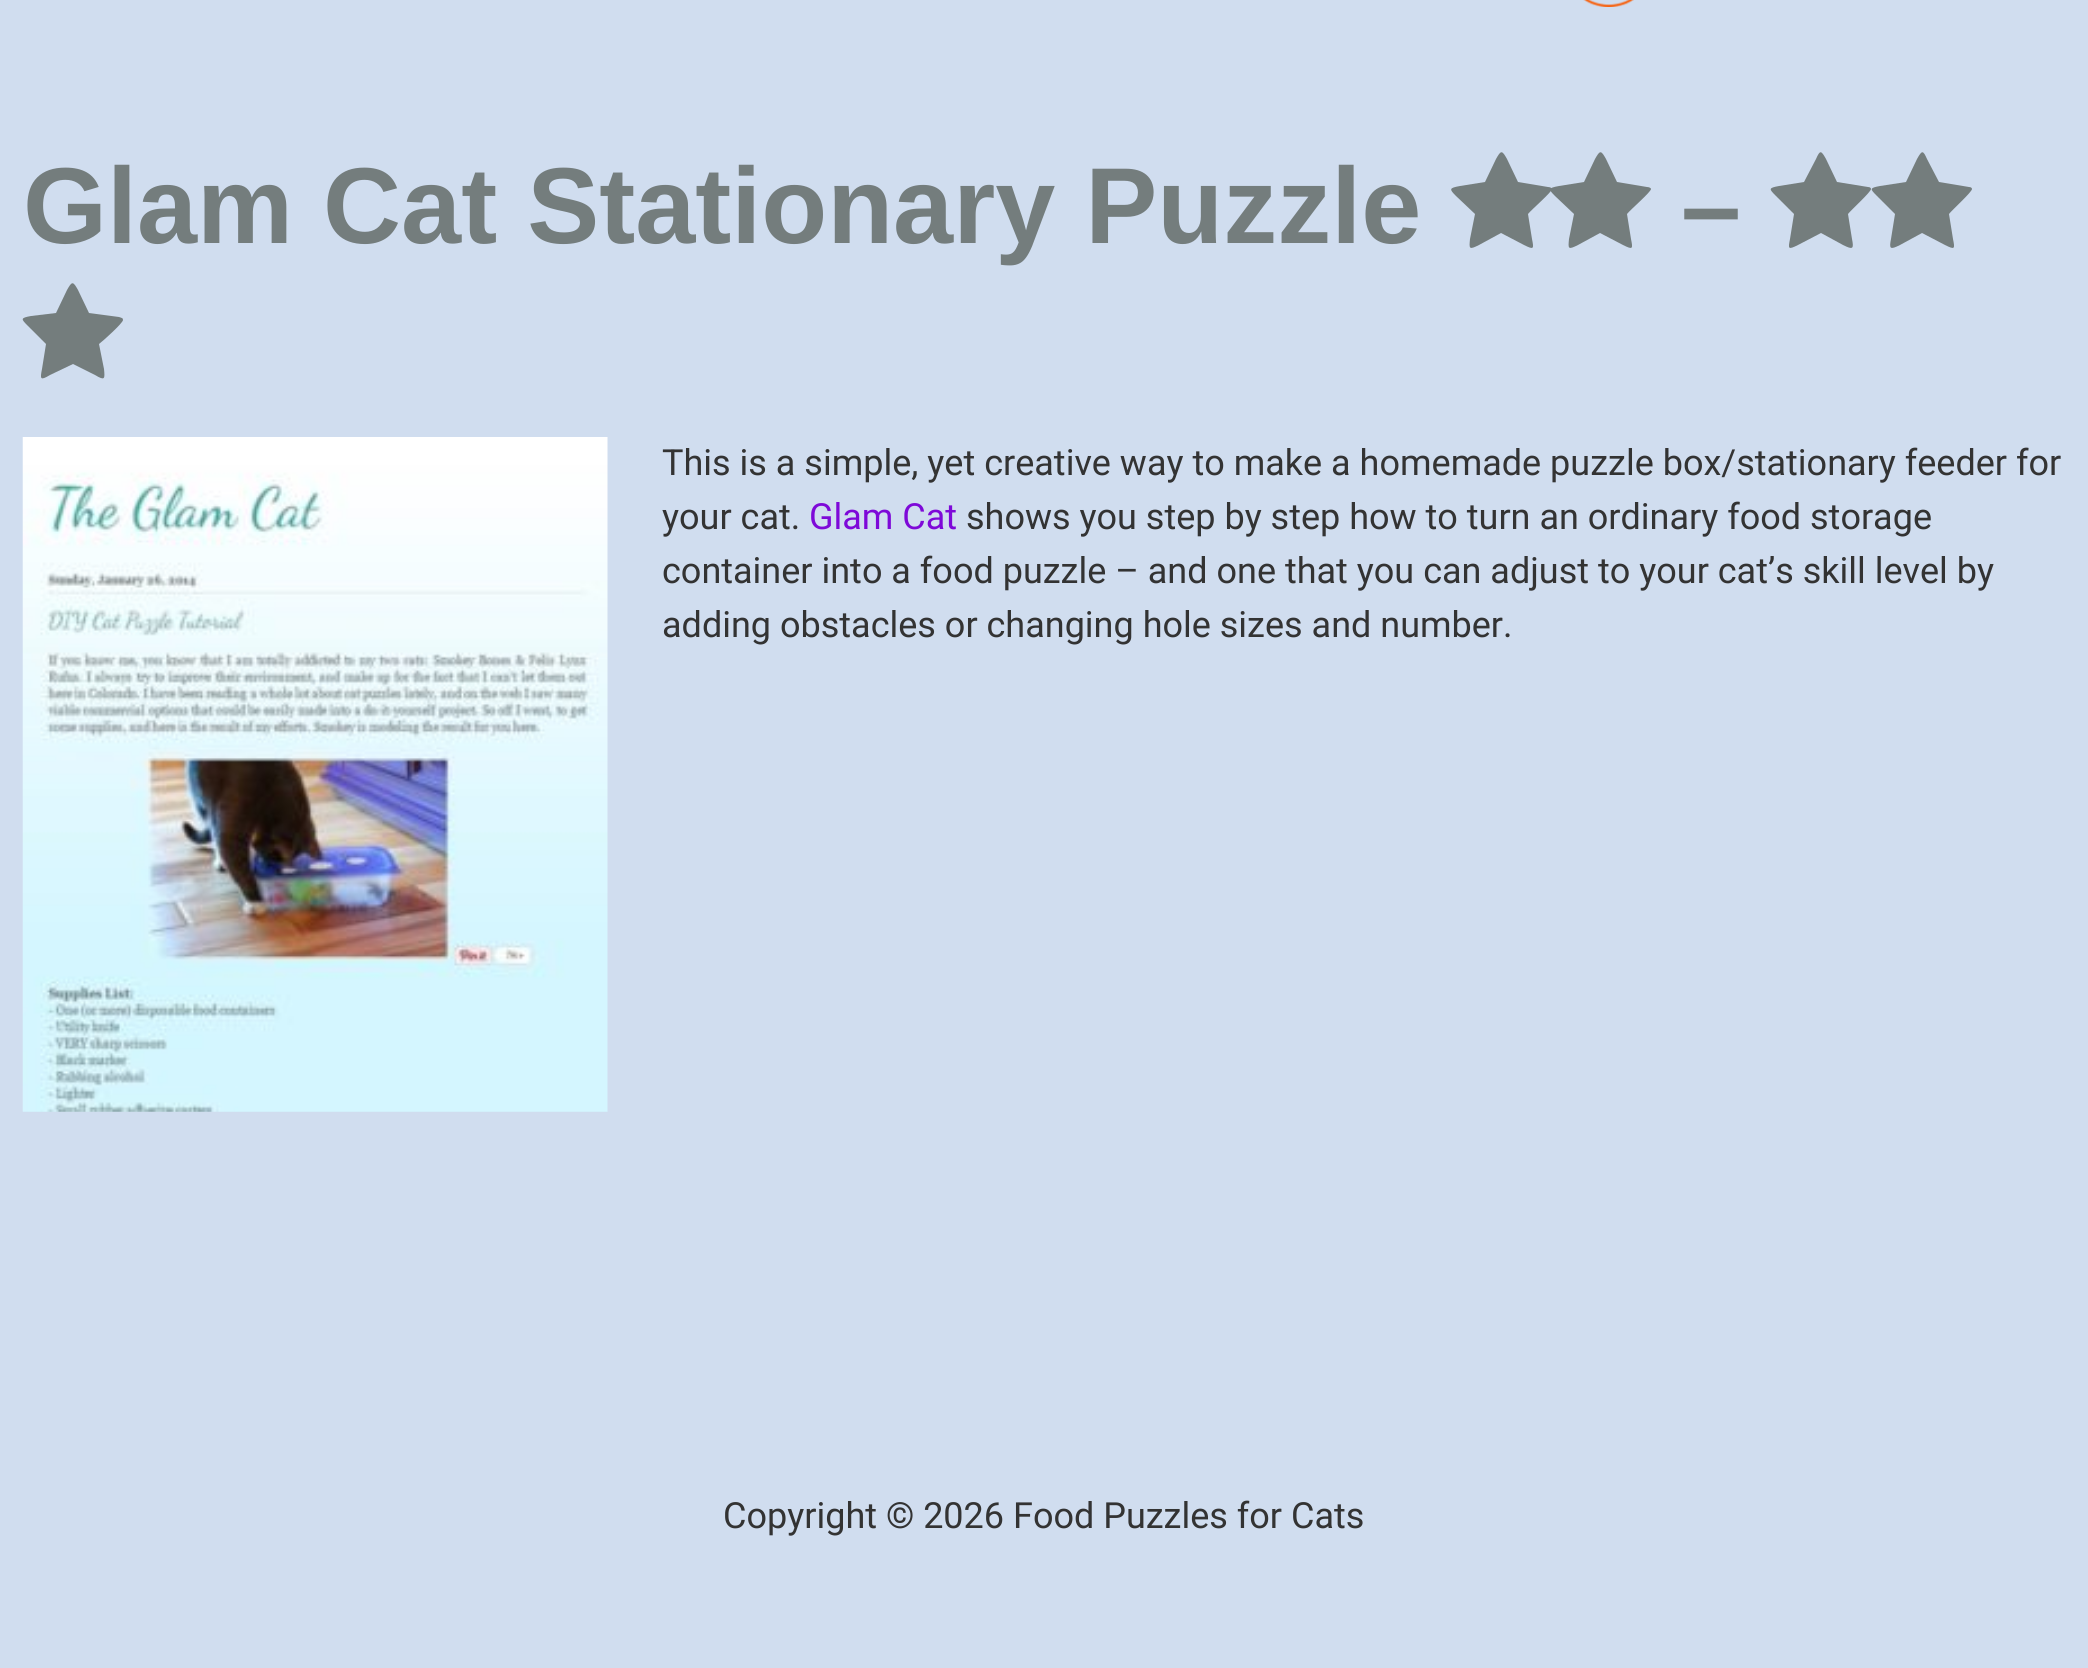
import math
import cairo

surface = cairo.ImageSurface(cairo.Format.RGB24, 2088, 1668)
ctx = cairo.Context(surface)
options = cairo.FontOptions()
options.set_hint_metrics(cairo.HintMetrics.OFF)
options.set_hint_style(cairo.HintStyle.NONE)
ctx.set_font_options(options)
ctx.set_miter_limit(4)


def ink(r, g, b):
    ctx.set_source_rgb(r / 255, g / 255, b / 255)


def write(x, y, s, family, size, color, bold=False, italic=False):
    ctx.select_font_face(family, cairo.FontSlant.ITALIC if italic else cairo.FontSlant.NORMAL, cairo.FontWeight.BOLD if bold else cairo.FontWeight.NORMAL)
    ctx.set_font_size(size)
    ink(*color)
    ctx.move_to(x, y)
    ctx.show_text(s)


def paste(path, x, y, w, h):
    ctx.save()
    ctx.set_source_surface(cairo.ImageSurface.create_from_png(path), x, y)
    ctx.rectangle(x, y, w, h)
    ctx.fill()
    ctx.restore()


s1 = dict(family="Liberation Sans", size=108, color=(116, 125, 125), bold=True)
s2 = dict(family="Roboto", size=36, color=(51, 51, 51))
s3 = dict(family="Roboto", size=36, color=(126, 9, 216))

ink(208, 221, 239)
ctx.paint()
paste("pic1.png", 1583, 0, 51, 7)
write(23, 243, "Glam Cat Stationary Puzzle", **s1)
ctx.new_path()
ctx.move_to(1552, 189)
ctx.curve_to(1552, 192, 1531, 210, 1528, 214)
ctx.line_to(1532, 239)
ctx.curve_to(1534, 249, 1534, 250, 1524, 245)
ctx.line_to(1501, 233)
ctx.line_to(1479, 245)
ctx.curve_to(1469, 250, 1469, 249, 1470, 239)
ctx.line_to(1475, 214)
ctx.line_to(1456, 196)
ctx.curve_to(1449, 189, 1449, 188, 1460, 186)
ctx.line_to(1485, 182)
ctx.line_to(1496, 159)
ctx.curve_to(1501, 150, 1502, 150, 1507, 159)
ctx.line_to(1518, 182)
ctx.line_to(1548, 187)
ctx.curve_to(1550, 187, 1552, 188, 1552, 189)
ctx.close_path()
ctx.fill()
ctx.new_path()
ctx.move_to(1651, 189)
ctx.curve_to(1651, 192, 1630, 210, 1627, 214)
ctx.line_to(1631, 239)
ctx.curve_to(1633, 249, 1633, 250, 1623, 245)
ctx.line_to(1600, 233)
ctx.line_to(1578, 245)
ctx.curve_to(1568, 250, 1568, 249, 1569, 239)
ctx.line_to(1574, 214)
ctx.line_to(1555, 196)
ctx.curve_to(1548, 189, 1548, 188, 1559, 186)
ctx.line_to(1584, 182)
ctx.line_to(1595, 159)
ctx.curve_to(1600, 150, 1601, 150, 1606, 159)
ctx.line_to(1617, 182)
ctx.line_to(1647, 187)
ctx.curve_to(1649, 187, 1651, 188, 1651, 189)
ctx.close_path()
ctx.fill()
write(1681, 243, "–", **s1)
ctx.new_path()
ctx.move_to(1871, 189)
ctx.curve_to(1871, 192, 1851, 210, 1848, 214)
ctx.line_to(1852, 239)
ctx.curve_to(1854, 249, 1853, 250, 1843, 245)
ctx.line_to(1821, 233)
ctx.line_to(1798, 245)
ctx.curve_to(1788, 250, 1788, 249, 1790, 239)
ctx.line_to(1794, 214)
ctx.line_to(1776, 196)
ctx.curve_to(1769, 189, 1768, 188, 1779, 186)
ctx.line_to(1804, 182)
ctx.line_to(1816, 159)
ctx.curve_to(1820, 150, 1821, 150, 1826, 159)
ctx.line_to(1837, 182)
ctx.line_to(1868, 187)
ctx.curve_to(1870, 187, 1871, 188, 1871, 189)
ctx.close_path()
ctx.fill()
ctx.new_path()
ctx.move_to(1972, 189)
ctx.curve_to(1972, 192, 1952, 210, 1949, 214)
ctx.line_to(1953, 239)
ctx.curve_to(1955, 249, 1955, 250, 1945, 245)
ctx.line_to(1922, 233)
ctx.line_to(1900, 245)
ctx.curve_to(1890, 250, 1889, 249, 1891, 239)
ctx.line_to(1895, 214)
ctx.line_to(1877, 196)
ctx.curve_to(1870, 189, 1869, 188, 1880, 186)
ctx.line_to(1906, 182)
ctx.line_to(1917, 159)
ctx.curve_to(1922, 150, 1923, 150, 1927, 159)
ctx.line_to(1939, 182)
ctx.line_to(1969, 187)
ctx.curve_to(1971, 187, 1972, 188, 1972, 189)
ctx.close_path()
ctx.fill()
ctx.new_path()
ctx.move_to(123, 320)
ctx.curve_to(123, 323, 103, 341, 99, 344)
ctx.line_to(104, 369)
ctx.curve_to(105, 379, 105, 381, 95, 375)
ctx.line_to(73, 364)
ctx.line_to(50, 375)
ctx.curve_to(40, 381, 40, 379, 42, 369)
ctx.line_to(46, 344)
ctx.line_to(28, 326)
ctx.curve_to(21, 319, 20, 318, 31, 316)
ctx.line_to(56, 313)
ctx.line_to(67, 290)
ctx.curve_to(72, 281, 73, 281, 78, 290)
ctx.line_to(89, 313)
ctx.line_to(119, 317)
ctx.curve_to(122, 318, 123, 318, 123, 320)
ctx.close_path()
ctx.fill()
paste("pic2.png", 22, 437, 586, 675)
write(662, 475, "This is a simple, yet creative way to make a homemade puzzle box/stationary feeder for", **s2)
write(662, 529, "your cat.", **s2)
write(809, 529, "Glam Cat", **s3)
write(966, 529, "shows you step by step how to turn an ordinary food storage", **s2)
write(662, 583, "container into a food puzzle – and one that you can adjust to your cat’s skill level by", **s2)
write(662, 637, "adding obstacles or changing hole sizes and number.", **s2)
write(723, 1528, "Copyright © 2026 Food Puzzles for Cats", **s2)
surface.write_to_png("screenshot.png")
